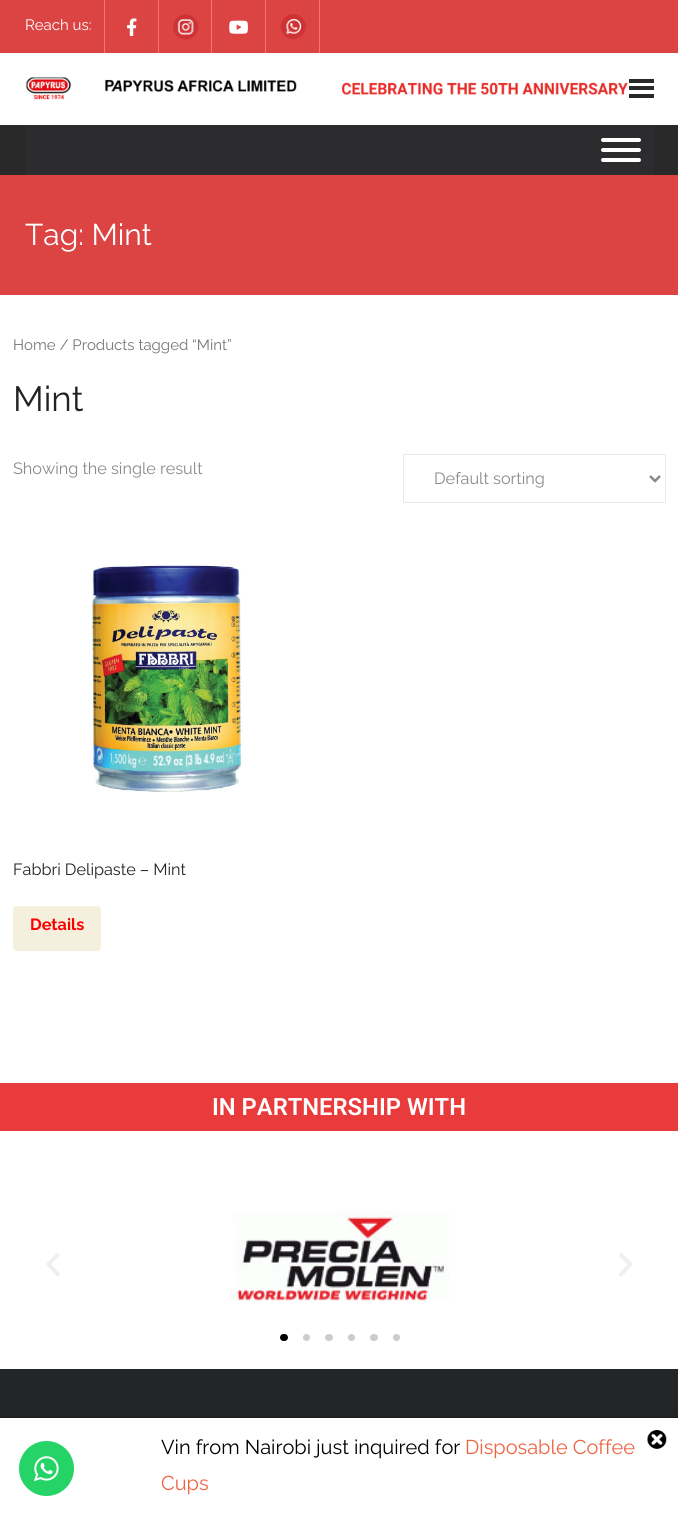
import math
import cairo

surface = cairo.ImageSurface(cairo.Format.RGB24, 678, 1515)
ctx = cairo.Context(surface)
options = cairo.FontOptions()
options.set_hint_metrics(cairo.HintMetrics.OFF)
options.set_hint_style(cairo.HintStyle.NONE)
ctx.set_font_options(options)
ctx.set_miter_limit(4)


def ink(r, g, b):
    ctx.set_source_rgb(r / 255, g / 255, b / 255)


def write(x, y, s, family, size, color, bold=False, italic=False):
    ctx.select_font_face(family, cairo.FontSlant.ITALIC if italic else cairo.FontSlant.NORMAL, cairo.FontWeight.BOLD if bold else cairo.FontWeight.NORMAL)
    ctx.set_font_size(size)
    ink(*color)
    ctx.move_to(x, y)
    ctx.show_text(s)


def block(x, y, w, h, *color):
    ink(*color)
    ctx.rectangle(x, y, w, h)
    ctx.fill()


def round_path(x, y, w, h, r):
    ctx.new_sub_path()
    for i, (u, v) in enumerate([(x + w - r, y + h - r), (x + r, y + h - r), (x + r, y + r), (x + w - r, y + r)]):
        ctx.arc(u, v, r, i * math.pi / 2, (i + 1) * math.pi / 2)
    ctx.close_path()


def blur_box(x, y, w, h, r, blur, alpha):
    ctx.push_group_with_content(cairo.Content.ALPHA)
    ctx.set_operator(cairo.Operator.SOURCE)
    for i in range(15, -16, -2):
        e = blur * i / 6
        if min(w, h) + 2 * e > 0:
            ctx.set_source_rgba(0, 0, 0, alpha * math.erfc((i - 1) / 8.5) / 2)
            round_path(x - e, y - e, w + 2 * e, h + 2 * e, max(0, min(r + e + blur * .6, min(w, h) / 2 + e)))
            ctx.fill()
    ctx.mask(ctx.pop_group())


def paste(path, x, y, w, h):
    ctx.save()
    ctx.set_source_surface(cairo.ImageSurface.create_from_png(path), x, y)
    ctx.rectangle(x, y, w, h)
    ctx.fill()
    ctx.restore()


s1 = dict(family="Raleway", size=15, color=(255, 255, 255))
s2 = dict(family="Raleway", size=30, color=(255, 255, 255))
s3 = dict(family="Raleway", size=15, color=(118, 118, 118))
s4 = dict(family="Raleway", size=35, color=(32, 34, 36))
s5 = dict(family="Raleway", size=16.25, color=(137, 138, 140))
s6 = dict(family="Raleway", size=16.25, color=(32, 34, 36))
s7 = dict(family="Raleway", size=16.25, color=(255, 0, 0), bold=True)
s8 = dict(family="Roboto SemiBold", size=23.75, color=(255, 255, 255))
s9 = dict(family="Raleway", size=20, color=(0, 0, 0))
s10 = dict(family="Raleway", size=20, color=(238, 100, 67))

ink(255, 255, 255)
ctx.paint()
block(0, 0, 678, 53, 220, 68, 68)
write(25, 30, "Reach us:", **s1)
block(104, 0, 1, 53, 251, 115, 115)
paste("pic1.png", 127, 18, 10, 18)
block(158, 0, 1, 53, 251, 115, 115)
paste("pic2.png", 173, 14, 26, 26)
block(211, 0, 1, 53, 251, 115, 115)
paste("pic3.png", 229, 20, 19, 14)
block(319, 0, 1, 53, 251, 115, 115)
block(265, 0, 1, 53, 251, 115, 115)
paste("pic4.png", 280, 14, 26, 26)
paste("pic5.png", 25, 77, 603, 23)
block(629, 79, 25, 4, 41, 41, 41)
block(629, 86, 25, 4, 41, 41, 41)
block(629, 94, 25, 4, 41, 41, 41)
block(0, 125, 678, 50, 41, 41, 41)
ink(44, 44, 46)
round_path(25, 125, 629, 50, 2.5)
ctx.fill()
ink(255, 255, 255)
round_path(601, 138, 40, 4, 2)
ctx.fill()
round_path(601, 148, 40, 4, 2)
ctx.fill()
round_path(601, 158, 40, 4, 2)
ctx.fill()
block(0, 175, 678, 120, 220, 68, 68)
write(25, 245, "Tag: Mint", **s2)
write(13, 350, "Home / Products tagged “Mint”", **s3)
write(13, 411, "Mint", **s4)
write(13, 474, "Showing the single result", **s5)
ctx.rectangle(403.5, 454.5, 262, 48)
ink(233, 233, 233)
ctx.set_line_width(1)
ctx.stroke()
ctx.new_path()
ctx.move_to(650, 476)
ctx.line_to(655, 481)
ctx.line_to(660, 476)
ink(137, 138, 140)
ctx.set_line_width(2.5)
ctx.stroke()
write(434, 484, "Default sorting", **s5)
paste("pic6.png", 91, 564, 152, 228)
write(13, 875, "Fabbri Delipaste – Mint", **s6)
ink(244, 240, 221)
round_path(13, 906, 88, 45, 4)
ctx.fill()
write(30, 930, "Details", **s7)
block(0, 1083, 678, 48, 233, 59, 59)
write(212, 1115, "IN PARTNERSHIP WITH", **s8)
paste("pic7.png", 46, 1253, 14, 24)
paste("pic8.png", 230, 1210, 219, 91)
paste("pic9.png", 619, 1253, 13, 24)
ink(0, 0, 0)
round_path(280, 1334, 8, 7, 3.5)
ctx.fill()
ink(204, 204, 204)
ctx.arc(306.5, 1337.5, 3.5, 0, 2 * math.pi)
ctx.fill()
round_path(325, 1334, 8, 7, 3.5)
ctx.fill()
ctx.arc(351.5, 1337.5, 3.5, 0, 2 * math.pi)
ctx.fill()
round_path(370, 1334, 8, 7, 3.5)
ctx.fill()
ctx.arc(396.5, 1337.5, 3.5, 0, 2 * math.pi)
ctx.fill()
block(0, 1369, 678, 49, 35, 37, 39)
ink(0, 0, 0)
blur_box(0, 1418, 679, 97, 0, 2.5, 0.4)
block(0, 1418, 678, 97, 255, 255, 255)
ink(37, 211, 102)
ctx.arc(46.5, 1468.5, 27.5, 0, 2 * math.pi)
ctx.fill()
paste("pic10.png", 34, 1456, 25, 25)
write(161, 1454, "Vin from Nairobi just inquired for", **s9)
write(465, 1454, "Disposable Coffee", **s10)
paste("pic11.png", 647, 1430, 20, 19)
write(161, 1490, "Cups", **s10)
surface.write_to_png("screenshot.png")
